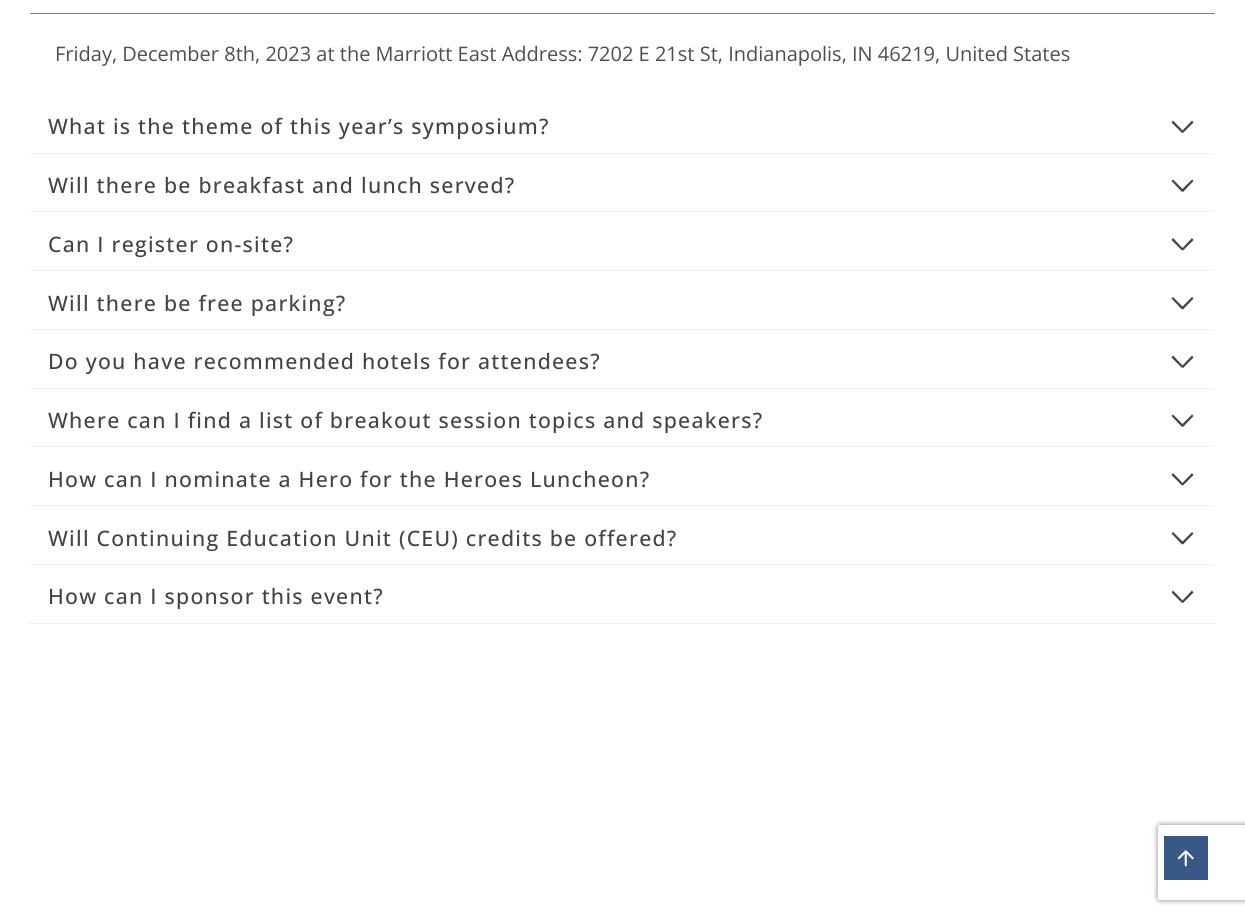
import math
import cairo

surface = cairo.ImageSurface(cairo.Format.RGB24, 1245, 917)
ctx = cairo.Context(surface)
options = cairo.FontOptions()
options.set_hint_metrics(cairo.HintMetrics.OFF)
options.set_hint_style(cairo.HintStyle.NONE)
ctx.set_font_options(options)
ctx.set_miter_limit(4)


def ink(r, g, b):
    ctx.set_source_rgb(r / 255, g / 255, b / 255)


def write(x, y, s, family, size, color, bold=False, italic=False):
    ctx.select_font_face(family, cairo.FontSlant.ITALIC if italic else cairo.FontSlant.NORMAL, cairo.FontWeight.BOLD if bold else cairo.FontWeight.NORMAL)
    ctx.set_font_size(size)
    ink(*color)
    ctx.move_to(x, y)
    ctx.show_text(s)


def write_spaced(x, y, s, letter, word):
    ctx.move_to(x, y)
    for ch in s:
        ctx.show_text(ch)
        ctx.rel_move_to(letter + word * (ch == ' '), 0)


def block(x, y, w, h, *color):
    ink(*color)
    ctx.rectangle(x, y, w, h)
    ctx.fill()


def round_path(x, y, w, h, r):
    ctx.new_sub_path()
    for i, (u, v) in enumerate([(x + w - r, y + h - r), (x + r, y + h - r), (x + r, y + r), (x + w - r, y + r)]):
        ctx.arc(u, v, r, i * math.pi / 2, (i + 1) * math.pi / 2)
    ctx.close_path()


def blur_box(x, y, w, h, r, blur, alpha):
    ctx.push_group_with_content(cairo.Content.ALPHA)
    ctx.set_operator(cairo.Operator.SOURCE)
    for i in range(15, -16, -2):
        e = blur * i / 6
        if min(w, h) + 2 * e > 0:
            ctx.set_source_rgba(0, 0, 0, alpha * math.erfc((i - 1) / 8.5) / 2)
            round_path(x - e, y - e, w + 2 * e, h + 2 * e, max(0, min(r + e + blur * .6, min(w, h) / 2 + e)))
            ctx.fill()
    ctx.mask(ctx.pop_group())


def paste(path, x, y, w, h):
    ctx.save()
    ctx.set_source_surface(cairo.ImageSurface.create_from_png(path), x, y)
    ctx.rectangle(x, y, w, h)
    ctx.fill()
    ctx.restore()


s1 = dict(family="Open Sans", size=20, color=(78, 78, 78))

ink(255, 255, 255)
ctx.paint()
block(30, 13, 1185, 1, 0, 180, 188)
write(55, 61, "Friday, December 8th, 2023 at the Marriott East Address: 7202 E 21st St, Indianapolis, IN 46219, United States", **s1)
block(30, 153, 1185, 1, 241, 241, 241)
ctx.select_font_face("Open Sans Medium")
ctx.set_font_size(21.25)
ink(68, 68, 68)
write_spaced(48, 134, "What is the theme of this year’s symposium?", 1.25, 0)
ctx.new_path()
ctx.move_to(1173, 120.5)
ctx.line_to(1183.5, 131.5)
ctx.line_to(1182, 133)
ctx.line_to(1171.5, 122.5)
ctx.close_path()
ctx.fill()
ctx.new_path()
ctx.move_to(1181.5, 131.5)
ctx.line_to(1192, 120.5)
ctx.line_to(1193.5, 122.5)
ctx.line_to(1183, 133)
ctx.close_path()
ctx.fill()
block(30, 211, 1185, 1, 241, 241, 241)
ink(68, 68, 68)
write_spaced(48, 193, "Will there be breakfast and lunch served?", 1.25, 0)
ctx.new_path()
ctx.move_to(1173, 179.5)
ctx.line_to(1183.5, 190)
ctx.line_to(1182, 192)
ctx.line_to(1171.5, 181)
ctx.close_path()
ctx.fill()
ctx.new_path()
ctx.move_to(1181.5, 190)
ctx.line_to(1192, 179.5)
ctx.line_to(1193.5, 181)
ctx.line_to(1183, 192)
ctx.close_path()
ctx.fill()
block(30, 270, 1185, 1, 241, 241, 241)
ink(68, 68, 68)
write_spaced(48, 252, "Can I register on-site?", 1.25, 0)
ctx.new_path()
ctx.move_to(1173, 238)
ctx.line_to(1183.5, 249)
ctx.line_to(1182, 250.5)
ctx.line_to(1171.5, 240)
ctx.close_path()
ctx.fill()
ctx.new_path()
ctx.move_to(1181.5, 249)
ctx.line_to(1192, 238)
ctx.line_to(1193.5, 240)
ctx.line_to(1183, 250.5)
ctx.close_path()
ctx.fill()
block(30, 329, 1185, 1, 241, 241, 241)
ink(68, 68, 68)
write_spaced(48, 311, "Will there be free parking?", 1.25, 0)
ctx.new_path()
ctx.move_to(1173, 297)
ctx.line_to(1183.5, 307.5)
ctx.line_to(1182, 309.5)
ctx.line_to(1171.5, 298.5)
ctx.close_path()
ctx.fill()
ctx.new_path()
ctx.move_to(1181.5, 307.5)
ctx.line_to(1192, 297)
ctx.line_to(1193.5, 298.5)
ctx.line_to(1183, 309.5)
ctx.close_path()
ctx.fill()
block(30, 388, 1185, 1, 241, 241, 241)
ink(68, 68, 68)
write_spaced(48, 369, "Do you have recommended hotels for attendees?", 1.25, 0)
ctx.new_path()
ctx.move_to(1173, 355.5)
ctx.line_to(1183.5, 366.5)
ctx.line_to(1182, 368)
ctx.line_to(1171.5, 357.5)
ctx.close_path()
ctx.fill()
ctx.new_path()
ctx.move_to(1181.5, 366.5)
ctx.line_to(1192, 355.5)
ctx.line_to(1193.5, 357.5)
ctx.line_to(1183, 368)
ctx.close_path()
ctx.fill()
block(30, 446, 1185, 1, 241, 241, 241)
ink(68, 68, 68)
write_spaced(48, 428, "Where can I find a list of breakout session topics and speakers?", 1.25, 0)
ctx.new_path()
ctx.move_to(1173, 414.5)
ctx.line_to(1183.5, 425)
ctx.line_to(1182, 427)
ctx.line_to(1171.5, 416)
ctx.close_path()
ctx.fill()
ctx.new_path()
ctx.move_to(1181.5, 425)
ctx.line_to(1192, 414.5)
ctx.line_to(1193.5, 416)
ctx.line_to(1183, 427)
ctx.close_path()
ctx.fill()
block(30, 505, 1185, 1, 241, 241, 241)
ink(68, 68, 68)
write_spaced(48, 487, "How can I nominate a Hero for the Heroes Luncheon?", 1.25, 0)
ctx.new_path()
ctx.move_to(1173, 473)
ctx.line_to(1183.5, 484)
ctx.line_to(1182, 485.5)
ctx.line_to(1171.5, 475)
ctx.close_path()
ctx.fill()
ctx.new_path()
ctx.move_to(1181.5, 484)
ctx.line_to(1192, 473)
ctx.line_to(1193.5, 475)
ctx.line_to(1183, 485.5)
ctx.close_path()
ctx.fill()
block(30, 564, 1185, 1, 241, 241, 241)
ink(68, 68, 68)
write_spaced(48, 546, "Will Continuing Education Unit (CEU) credits be offered?", 1.25, 0)
ctx.new_path()
ctx.move_to(1173, 532)
ctx.line_to(1183.5, 542.5)
ctx.line_to(1182, 544.5)
ctx.line_to(1171.5, 533.5)
ctx.close_path()
ctx.fill()
ctx.new_path()
ctx.move_to(1181.5, 542.5)
ctx.line_to(1192, 532)
ctx.line_to(1193.5, 533.5)
ctx.line_to(1183, 544.5)
ctx.close_path()
ctx.fill()
block(30, 623, 1185, 1, 241, 241, 241)
ink(68, 68, 68)
write_spaced(48, 604, "How can I sponsor this event?", 1.25, 0)
ctx.new_path()
ctx.move_to(1173, 590.5)
ctx.line_to(1183.5, 601.5)
ctx.line_to(1182, 603)
ctx.line_to(1171.5, 592.5)
ctx.close_path()
ctx.fill()
ctx.new_path()
ctx.move_to(1181.5, 601.5)
ctx.line_to(1192, 590.5)
ctx.line_to(1193.5, 592.5)
ctx.line_to(1183, 603)
ctx.close_path()
ctx.fill()
ctx.save()
ctx.set_fill_rule(cairo.FillRule.EVEN_ODD)
ctx.new_path()
ctx.move_to(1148, 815)
ctx.line_to(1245, 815)
ctx.line_to(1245, 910)
ctx.line_to(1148, 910)
ctx.close_path()
ctx.move_to(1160.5, 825)
ctx.line_to(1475.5, 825)
ctx.curve_to(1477, 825, 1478, 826, 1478, 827.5)
ctx.line_to(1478, 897.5)
ctx.curve_to(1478, 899, 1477, 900, 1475.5, 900)
ctx.line_to(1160.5, 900)
ctx.curve_to(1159, 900, 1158, 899, 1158, 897.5)
ctx.line_to(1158, 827.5)
ctx.curve_to(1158, 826, 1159, 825, 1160.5, 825)
ctx.close_path()
ctx.clip()
ink(128, 128, 128)
blur_box(1158, 825, 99, 75, 2.5, 3, 1)
ctx.restore()
block(1164, 836, 44, 44, 56, 89, 136)
paste("pic1.png", 1177, 850, 17, 17)
surface.write_to_png("screenshot.png")
